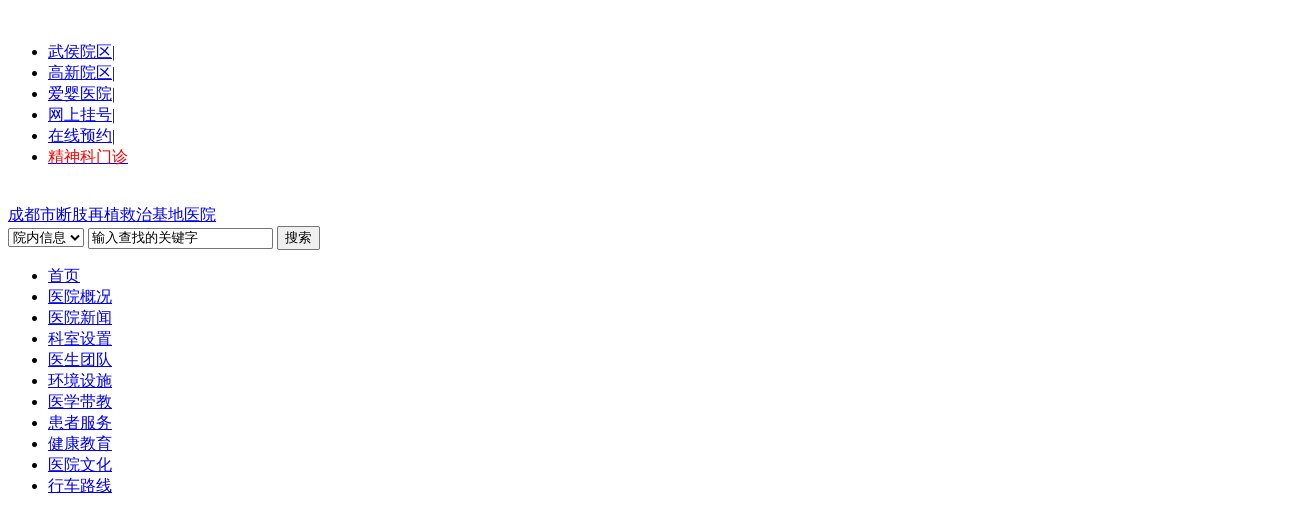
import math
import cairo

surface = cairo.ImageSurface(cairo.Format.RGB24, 1291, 531)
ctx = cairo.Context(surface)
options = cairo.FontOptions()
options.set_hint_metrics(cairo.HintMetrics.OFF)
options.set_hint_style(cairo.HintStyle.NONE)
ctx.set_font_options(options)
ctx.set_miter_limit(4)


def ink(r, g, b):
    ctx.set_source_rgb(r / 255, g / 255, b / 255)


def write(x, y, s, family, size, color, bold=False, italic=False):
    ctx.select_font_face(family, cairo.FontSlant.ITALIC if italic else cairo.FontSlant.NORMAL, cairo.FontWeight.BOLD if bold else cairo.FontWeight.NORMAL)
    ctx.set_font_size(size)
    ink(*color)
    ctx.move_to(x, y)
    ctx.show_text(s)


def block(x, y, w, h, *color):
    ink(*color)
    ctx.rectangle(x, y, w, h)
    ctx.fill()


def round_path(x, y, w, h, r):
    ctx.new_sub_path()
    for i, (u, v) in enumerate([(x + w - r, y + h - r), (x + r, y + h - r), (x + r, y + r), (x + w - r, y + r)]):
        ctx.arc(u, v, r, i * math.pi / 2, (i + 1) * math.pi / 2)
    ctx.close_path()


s1 = dict(family="WenQuanYi Zen Hei Medium", size=16, color=(0, 0, 238))
s2 = dict(family="Liberation Serif", size=16, color=(0, 0, 0))
s3 = dict(family="WenQuanYi Zen Hei Medium", size=16, color=(255, 0, 0))
s4 = dict(family="WenQuanYi Zen Hei Medium", size=13.25, color=(0, 0, 0))

ink(255, 255, 255)
ctx.paint()
ink(0, 0, 0)
ctx.arc(34.5, 52.5, 2.5, 0, 2 * math.pi)
ctx.fill()
block(48, 58, 64, 1, 0, 0, 238)
write(48, 57, "武侯院区", **s1)
write(112, 57, "|", **s2)
ctx.new_path()
ctx.arc(34.5, 73.5, 2.5, 0, 2 * math.pi)
ctx.fill()
block(48, 79, 64, 1, 0, 0, 238)
write(48, 78, "高新院区", **s1)
write(112, 78, "|", **s2)
ctx.new_path()
ctx.arc(34.5, 94.5, 2.5, 0, 2 * math.pi)
ctx.fill()
block(48, 100, 64, 1, 0, 0, 238)
write(48, 99, "爱婴医院", **s1)
write(112, 99, "|", **s2)
ctx.new_path()
ctx.arc(34.5, 115.5, 2.5, 0, 2 * math.pi)
ctx.fill()
block(48, 121, 64, 1, 0, 0, 238)
write(48, 120, "网上挂号", **s1)
write(112, 120, "|", **s2)
ctx.new_path()
ctx.arc(34.5, 136.5, 2.5, 0, 2 * math.pi)
ctx.fill()
block(48, 142, 64, 1, 0, 0, 238)
write(48, 141, "在线预约", **s1)
write(112, 141, "|", **s2)
ctx.new_path()
ctx.arc(34.5, 157.5, 2.5, 0, 2 * math.pi)
ctx.fill()
block(48, 163, 80, 1, 0, 0, 238)
write(48, 162, "精神科门诊", **s3)
block(8, 221, 208, 1, 0, 0, 238)
write(8, 220, "成都市断肢再植救治基地医院", **s1)
round_path(8.5, 228.5, 75, 18, 1.5)
ink(118, 118, 118)
ctx.set_line_width(1)
ctx.stroke()
ctx.new_path()
ctx.move_to(71, 235.5)
ctx.line_to(75, 239.5)
ctx.line_to(79, 235.5)
ink(0, 0, 0)
ctx.set_line_width(2)
ctx.stroke()
write(13, 242, "院内信息", **s4)
round_path(88.5, 228.5, 184, 20, 1.5)
ink(118, 118, 118)
ctx.set_line_width(1)
ctx.stroke()
write(92, 242, "输入查找的关键字", **s4)
ink(239, 239, 239)
round_path(277.5, 226.5, 42, 23, 1.5)
ctx.fill_preserve()
ink(118, 118, 118)
ctx.stroke()
write(285, 242, "搜索", **s4)
ctx.new_path()
ctx.arc(34.5, 276.5, 2.5, 0, 2 * math.pi)
ctx.fill()
block(48, 282, 32, 1, 0, 0, 238)
write(48, 281, "首页", **s1)
ink(0, 0, 0)
ctx.new_path()
ctx.arc(34.5, 297.5, 2.5, 0, 2 * math.pi)
ctx.fill()
block(48, 303, 64, 1, 0, 0, 238)
write(48, 302, "医院概况", **s1)
ink(0, 0, 0)
ctx.new_path()
ctx.arc(34.5, 318.5, 2.5, 0, 2 * math.pi)
ctx.fill()
block(48, 324, 64, 1, 0, 0, 238)
write(48, 323, "医院新闻", **s1)
ink(0, 0, 0)
ctx.new_path()
ctx.arc(34.5, 339.5, 2.5, 0, 2 * math.pi)
ctx.fill()
block(48, 345, 64, 1, 0, 0, 238)
write(48, 344, "科室设置", **s1)
ink(0, 0, 0)
ctx.new_path()
ctx.arc(34.5, 360.5, 2.5, 0, 2 * math.pi)
ctx.fill()
block(48, 366, 64, 1, 0, 0, 238)
write(48, 365, "医生团队", **s1)
ink(0, 0, 0)
ctx.new_path()
ctx.arc(34.5, 381.5, 2.5, 0, 2 * math.pi)
ctx.fill()
block(48, 387, 64, 1, 0, 0, 238)
write(48, 386, "环境设施", **s1)
ink(0, 0, 0)
ctx.new_path()
ctx.arc(34.5, 402.5, 2.5, 0, 2 * math.pi)
ctx.fill()
block(48, 408, 64, 1, 0, 0, 238)
write(48, 407, "医学带教", **s1)
ink(0, 0, 0)
ctx.new_path()
ctx.arc(34.5, 423.5, 2.5, 0, 2 * math.pi)
ctx.fill()
block(48, 429, 64, 1, 0, 0, 238)
write(48, 428, "患者服务", **s1)
ink(0, 0, 0)
ctx.new_path()
ctx.arc(34.5, 444.5, 2.5, 0, 2 * math.pi)
ctx.fill()
block(48, 450, 64, 1, 0, 0, 238)
write(48, 449, "健康教育", **s1)
ink(0, 0, 0)
ctx.new_path()
ctx.arc(34.5, 465.5, 2.5, 0, 2 * math.pi)
ctx.fill()
block(48, 471, 64, 1, 0, 0, 238)
write(48, 470, "医院文化", **s1)
ink(0, 0, 0)
ctx.new_path()
ctx.arc(34.5, 486.5, 2.5, 0, 2 * math.pi)
ctx.fill()
block(48, 492, 64, 1, 0, 0, 238)
write(48, 491, "行车路线", **s1)
surface.write_to_png("screenshot.png")
